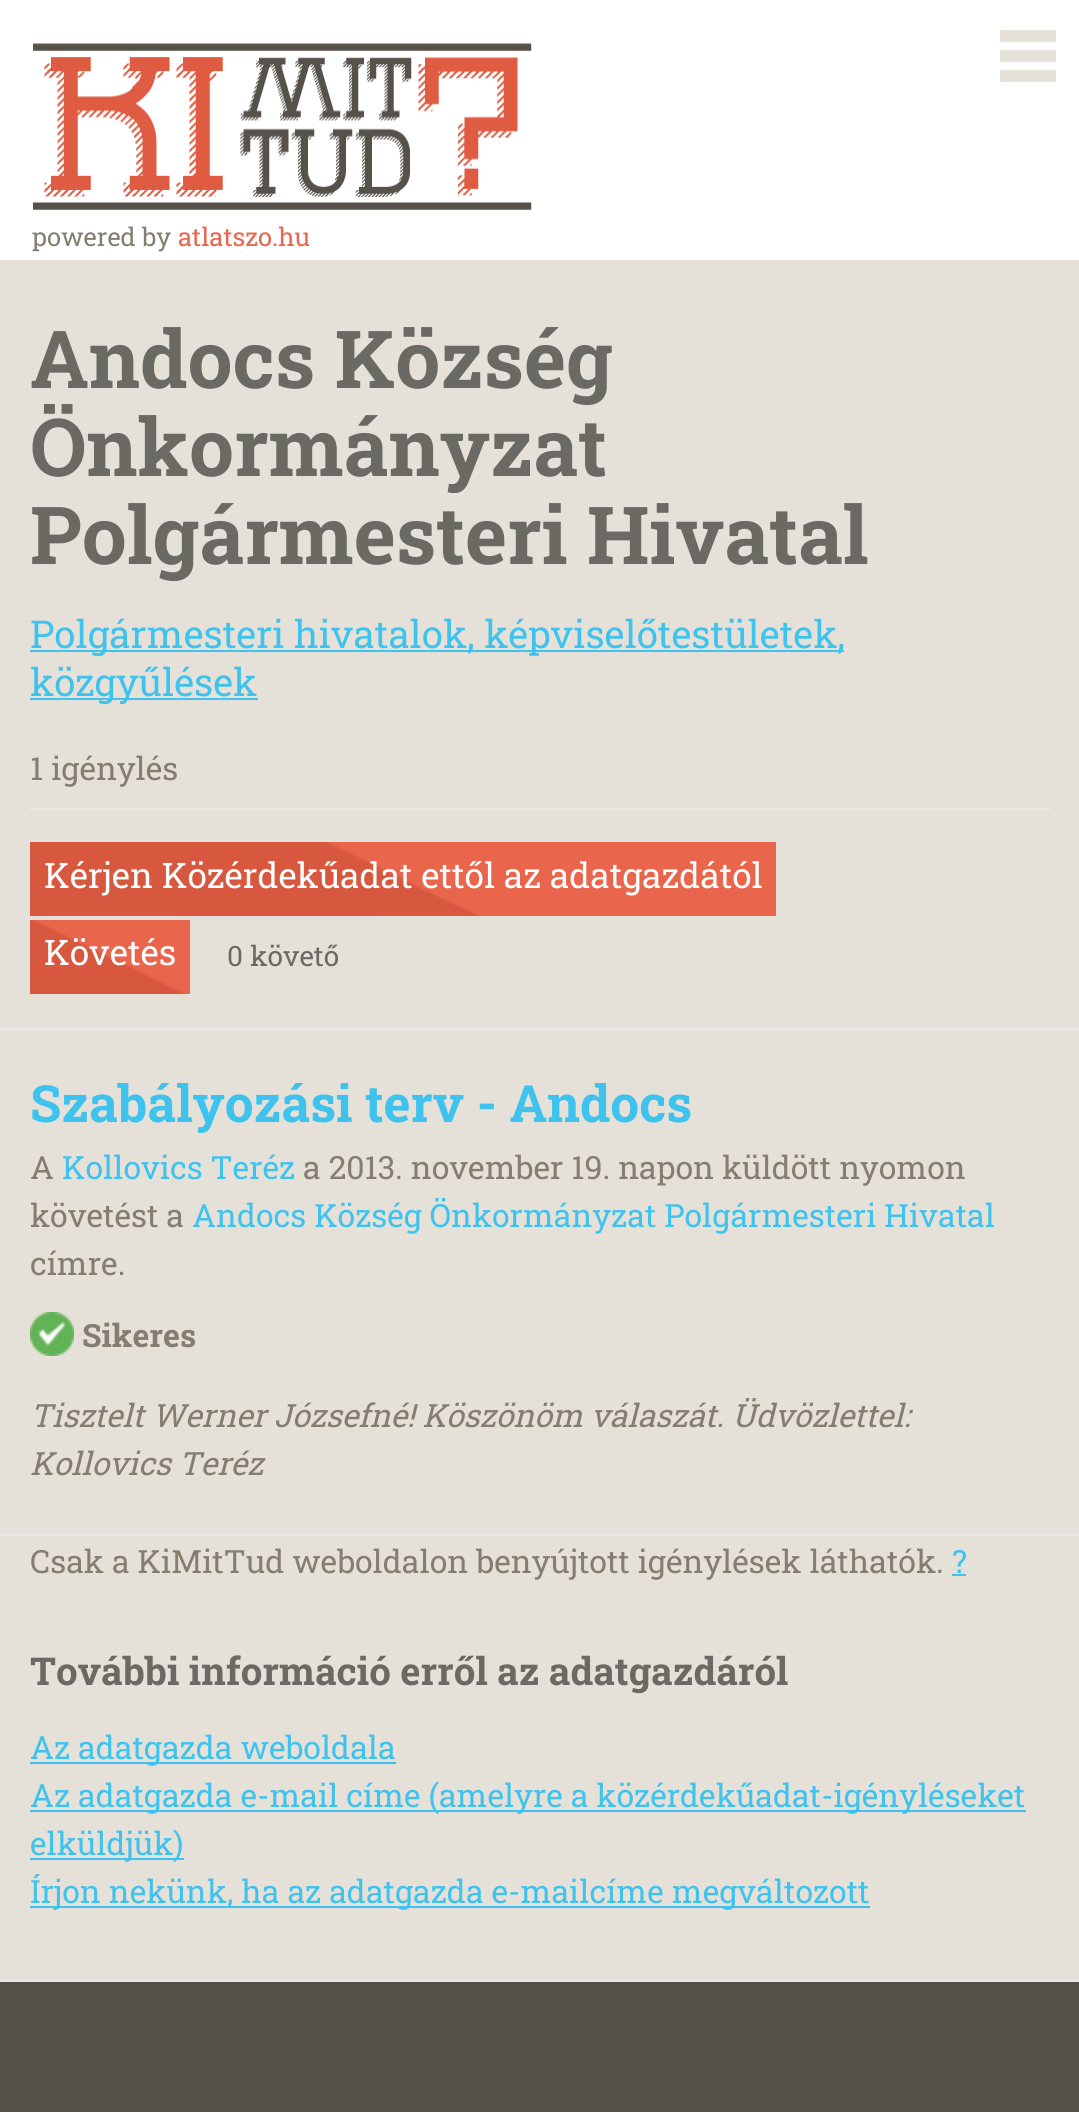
import math
import cairo

surface = cairo.ImageSurface(cairo.Format.RGB24, 1079, 2112)
ctx = cairo.Context(surface)
options = cairo.FontOptions()
options.set_hint_metrics(cairo.HintMetrics.OFF)
options.set_hint_style(cairo.HintStyle.NONE)
ctx.set_font_options(options)
ctx.set_miter_limit(4)


def ink(r, g, b):
    ctx.set_source_rgb(r / 255, g / 255, b / 255)


def write(x, y, s, family, size, color, bold=False, italic=False):
    ctx.select_font_face(family, cairo.FontSlant.ITALIC if italic else cairo.FontSlant.NORMAL, cairo.FontWeight.BOLD if bold else cairo.FontWeight.NORMAL)
    ctx.set_font_size(size)
    ink(*color)
    ctx.move_to(x, y)
    ctx.show_text(s)


def block(x, y, w, h, *color):
    ink(*color)
    ctx.rectangle(x, y, w, h)
    ctx.fill()


def paste(path, x, y, w, h):
    ctx.save()
    ctx.set_source_surface(cairo.ImageSurface.create_from_png(path), x, y)
    ctx.rectangle(x, y, w, h)
    ctx.fill()
    ctx.restore()


s1 = dict(family="Roboto Slab", size=25.5, color=(132, 125, 112))
s2 = dict(family="Roboto Slab", size=25.5, color=(233, 101, 75))
s3 = dict(family="Roboto Slab", size=80, color=(106, 105, 99), bold=True)
s4 = dict(family="Roboto Slab", size=38.4, color=(62, 194, 238))
s5 = dict(family="Roboto Slab", size=32, color=(132, 125, 112))
s6 = dict(family="Roboto Slab", size=35.2, color=(255, 255, 255))
s7 = dict(family="Roboto Slab", size=28, color=(106, 105, 99))
s8 = dict(family="Roboto Slab", size=51.25, color=(62, 194, 238), bold=True)
s9 = dict(family="Roboto Slab", size=32, color=(62, 194, 238))
s10 = dict(family="Roboto Slab", size=32, color=(132, 125, 112), bold=True)
s11 = dict(family="Roboto Slab", size=32, color=(132, 125, 112), italic=True)
s12 = dict(family="Roboto Slab", size=38.4, color=(106, 105, 99), bold=True)

ink(230, 225, 216)
ctx.paint()
block(0, 0, 1079, 260, 255, 255, 255)
paste("pic1.png", 1000, 30, 56, 52)
paste("pic2.png", 33, 43, 499, 167)
write(32, 246, "powered by", **s1)
write(178, 246, "atlatszo.hu", **s2)
block(0, 1028, 1079, 2, 233, 233, 233)
write(30, 388, "Andocs Község", **s3)
write(30, 476, "Önkormányzat", **s3)
write(30, 564, "Polgármesteri Hivatal", **s3)
block(30, 650, 814, 2, 62, 194, 238)
write(30, 648, "Polgármesteri hivatalok, képviselőtestületek,", **s4)
block(30, 698, 228, 2, 62, 194, 238)
write(30, 696, "közgyűlések", **s4)
write(30, 780, "1 igénylés", **s5)
block(30, 808, 1020, 2, 233, 233, 233)
paste("pic3.png", 30, 842, 746, 74)
write(44, 888, "Kérjen Közérdekűadat ettől az adatgazdától", **s6)
paste("pic4.png", 30, 920, 160, 74)
write(44, 965, "Követés", **s6)
ink(226, 223, 217)
ctx.set_fill_rule(cairo.FillRule.EVEN_ODD)
ctx.new_path()
ctx.move_to(192, 916)
ctx.line_to(370, 916)
ctx.curve_to(373, 916, 376, 919, 376, 922)
ctx.line_to(376, 990)
ctx.curve_to(376, 993, 373, 996, 370, 996)
ctx.line_to(192, 996)
ctx.close_path()
ctx.move_to(192, 918)
ctx.line_to(370, 918)
ctx.curve_to(372, 918, 374, 920, 374, 922)
ctx.line_to(374, 990)
ctx.curve_to(374, 992, 372, 994, 370, 994)
ctx.line_to(192, 994)
ctx.close_path()
ctx.fill()
write(227, 966, "0 követő", **s7)
block(0, 1534, 1079, 2, 233, 233, 233)
write(30, 1122, "Szabályozási terv - Andocs", **s8)
write(30, 1179, "A", **s5)
write(62, 1179, "Kollovics Teréz", **s9)
write(303, 1179, "a 2013. november 19. napon küldött nyomon", **s5)
write(30, 1227, "követést a", **s5)
write(192, 1227, "Andocs Község Önkormányzat Polgármesteri Hivatal", **s9)
write(30, 1275, "címre.", **s5)
paste("pic5.png", 30, 1312, 44, 44)
write(82, 1347, "Sikeres", **s10)
write(30, 1427, "Tisztelt Werner Józsefné! Köszönöm válaszát. Üdvözlettel:", **s11)
write(30, 1475, "Kollovics Teréz", **s11)
write(30, 1573, "Csak a KiMitTud weboldalon benyújtott igénylések láthatók.", **s5)
write(952, 1573, "?", **s9)
block(952, 1574, 14, 2, 62, 194, 238)
write(30, 1685, "További információ erről az adatgazdáról", **s12)
block(30, 1762, 366, 2, 62, 194, 238)
write(30, 1759, "Az adatgazda weboldala", **s9)
block(30, 1810, 996, 2, 62, 194, 238)
write(30, 1807, "Az adatgazda e-mail címe (amelyre a közérdekűadat-igényléseket", **s9)
block(30, 1858, 154, 2, 62, 194, 238)
write(30, 1855, "elküldjük)", **s9)
block(30, 1906, 840, 2, 62, 194, 238)
write(30, 1903, "Írjon nekünk, ha az adatgazda e-mailcíme megváltozott", **s9)
block(0, 1982, 1079, 130, 84, 80, 73)
block(0, 1980, 1079, 2, 233, 233, 233)
surface.write_to_png("screenshot.png")
